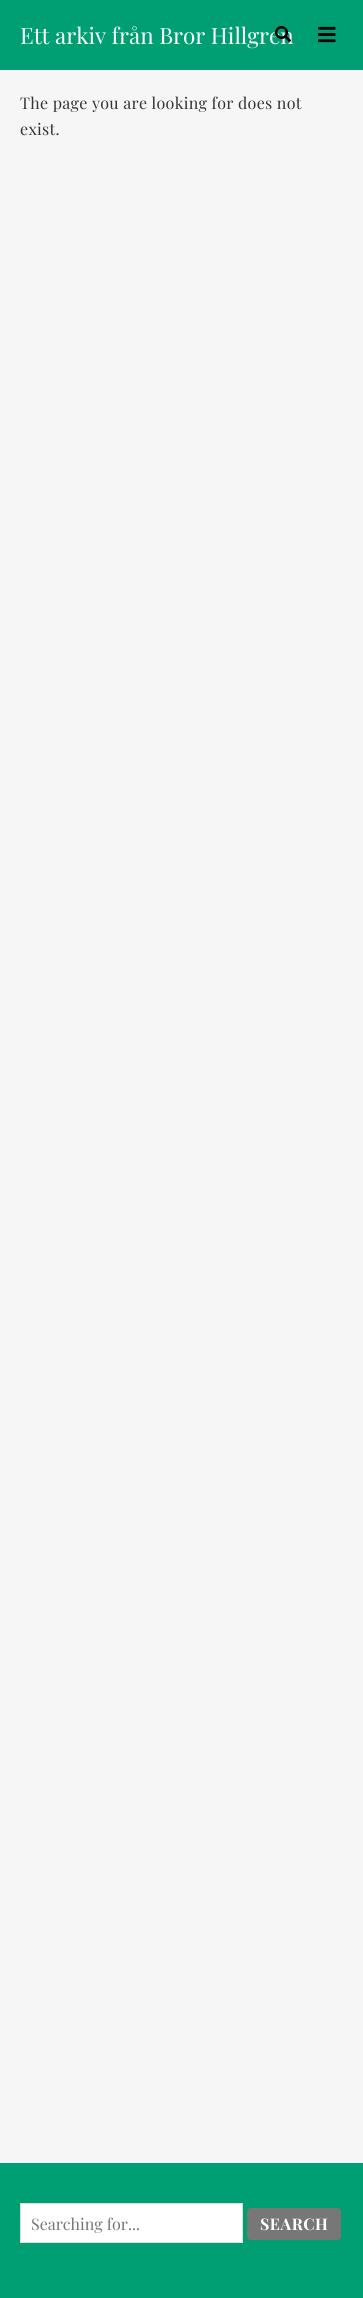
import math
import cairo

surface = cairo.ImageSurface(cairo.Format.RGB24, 363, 2298)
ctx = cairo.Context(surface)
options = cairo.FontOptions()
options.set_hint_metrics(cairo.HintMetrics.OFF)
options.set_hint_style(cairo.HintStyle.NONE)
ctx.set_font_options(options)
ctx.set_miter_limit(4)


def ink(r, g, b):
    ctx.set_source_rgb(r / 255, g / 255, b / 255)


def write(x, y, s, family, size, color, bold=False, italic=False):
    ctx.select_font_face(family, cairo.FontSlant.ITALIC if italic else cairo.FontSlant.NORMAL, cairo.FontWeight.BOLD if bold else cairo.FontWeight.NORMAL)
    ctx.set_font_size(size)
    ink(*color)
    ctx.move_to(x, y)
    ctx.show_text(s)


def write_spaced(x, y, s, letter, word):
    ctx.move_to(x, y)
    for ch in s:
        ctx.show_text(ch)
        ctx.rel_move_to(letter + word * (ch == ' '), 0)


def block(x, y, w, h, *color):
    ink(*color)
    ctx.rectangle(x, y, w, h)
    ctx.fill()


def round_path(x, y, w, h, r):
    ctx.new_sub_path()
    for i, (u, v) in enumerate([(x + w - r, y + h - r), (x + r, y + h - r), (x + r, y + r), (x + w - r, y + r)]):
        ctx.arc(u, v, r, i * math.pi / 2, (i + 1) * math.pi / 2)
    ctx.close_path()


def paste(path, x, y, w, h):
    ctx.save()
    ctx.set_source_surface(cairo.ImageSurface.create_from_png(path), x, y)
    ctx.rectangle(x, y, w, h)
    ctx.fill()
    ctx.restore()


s1 = dict(family="Playfair Display", size=22.4, color=(255, 255, 255))
s2 = dict(family="Playfair Display", size=16, color=(117, 117, 117))

ink(246, 246, 246)
ctx.paint()
block(0, 0, 363, 70, 0, 158, 115)
write(20, 44, "Ett arkiv från Bror Hillgren", **s1)
paste("pic1.png", 275, 26, 16, 16)
paste("pic2.png", 318, 26, 18, 17)
ctx.set_font_size(16)
ink(51, 51, 51)
write_spaced(20, 109, "The page you are looking for does not", 0.3, 0)
write_spaced(20, 135, "exist.", 0.3, 0)
block(0, 2163, 363, 135, 0, 158, 115)
ink(255, 255, 255)
ctx.rectangle(20.5, 2203.5, 222, 39)
ctx.fill_preserve()
ink(221, 221, 221)
ctx.set_line_width(1)
ctx.stroke()
write(31, 2230, "Searching for...", **s2)
ink(119, 119, 119)
round_path(247, 2208, 94, 32, 4)
ctx.fill()
ctx.select_font_face("Playfair Display", cairo.FontSlant.NORMAL, cairo.FontWeight.BOLD)
ink(255, 255, 255)
write_spaced(260, 2230, "SEARCH", 0.5, 0)
surface.write_to_png("screenshot.png")
